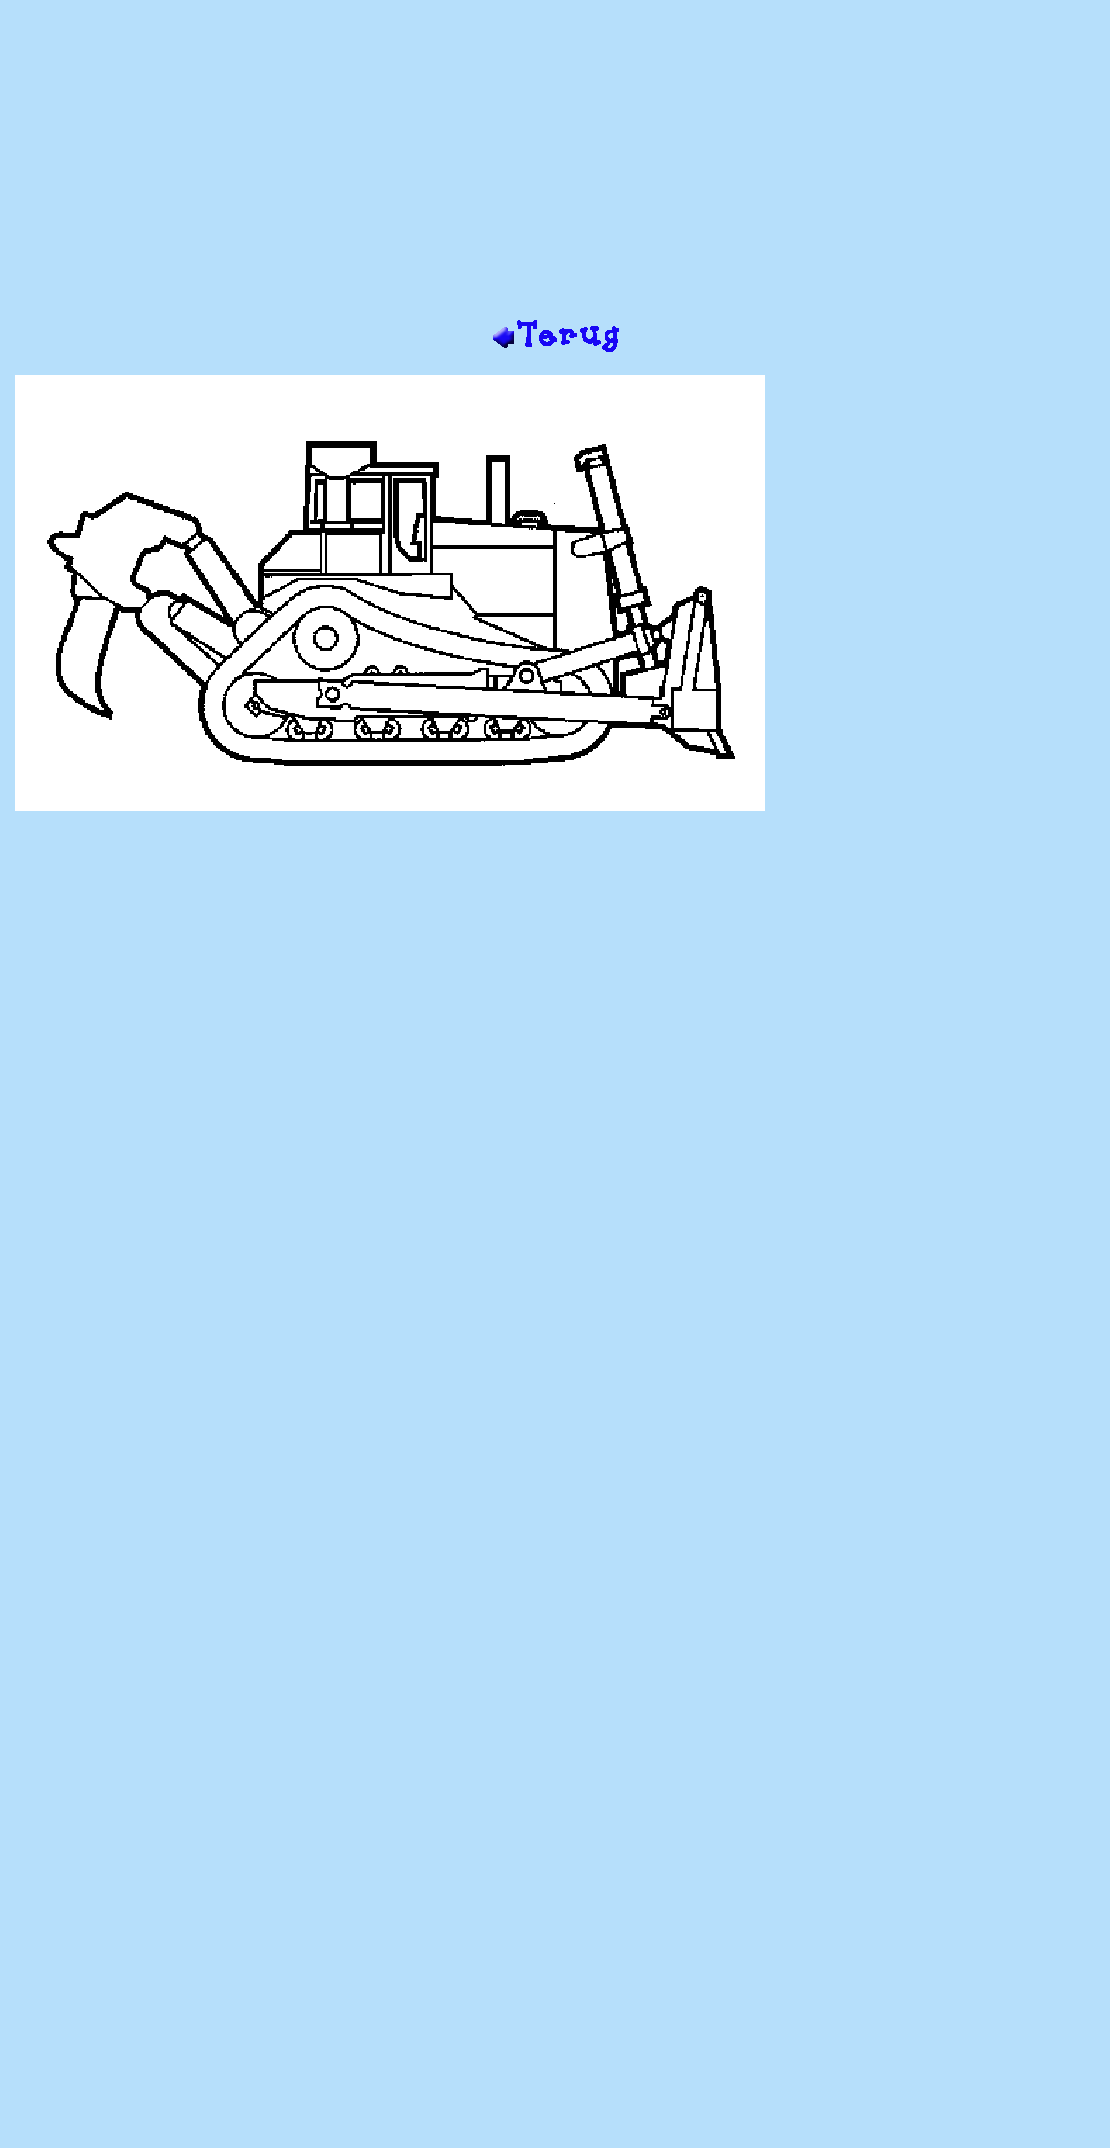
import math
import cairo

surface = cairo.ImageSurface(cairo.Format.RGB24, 1110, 2148)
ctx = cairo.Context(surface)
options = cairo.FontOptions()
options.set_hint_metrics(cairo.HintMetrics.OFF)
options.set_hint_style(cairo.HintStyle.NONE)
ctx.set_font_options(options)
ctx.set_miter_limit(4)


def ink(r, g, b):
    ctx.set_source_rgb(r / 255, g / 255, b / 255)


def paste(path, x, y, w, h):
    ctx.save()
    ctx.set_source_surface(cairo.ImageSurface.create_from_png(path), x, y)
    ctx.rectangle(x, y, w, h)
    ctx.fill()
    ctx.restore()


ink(182, 223, 251)
ctx.paint()
paste("pic1.png", 493, 320, 126, 32)
paste("pic2.png", 15, 375, 750, 436)
surface.write_to_png("screenshot.png")
